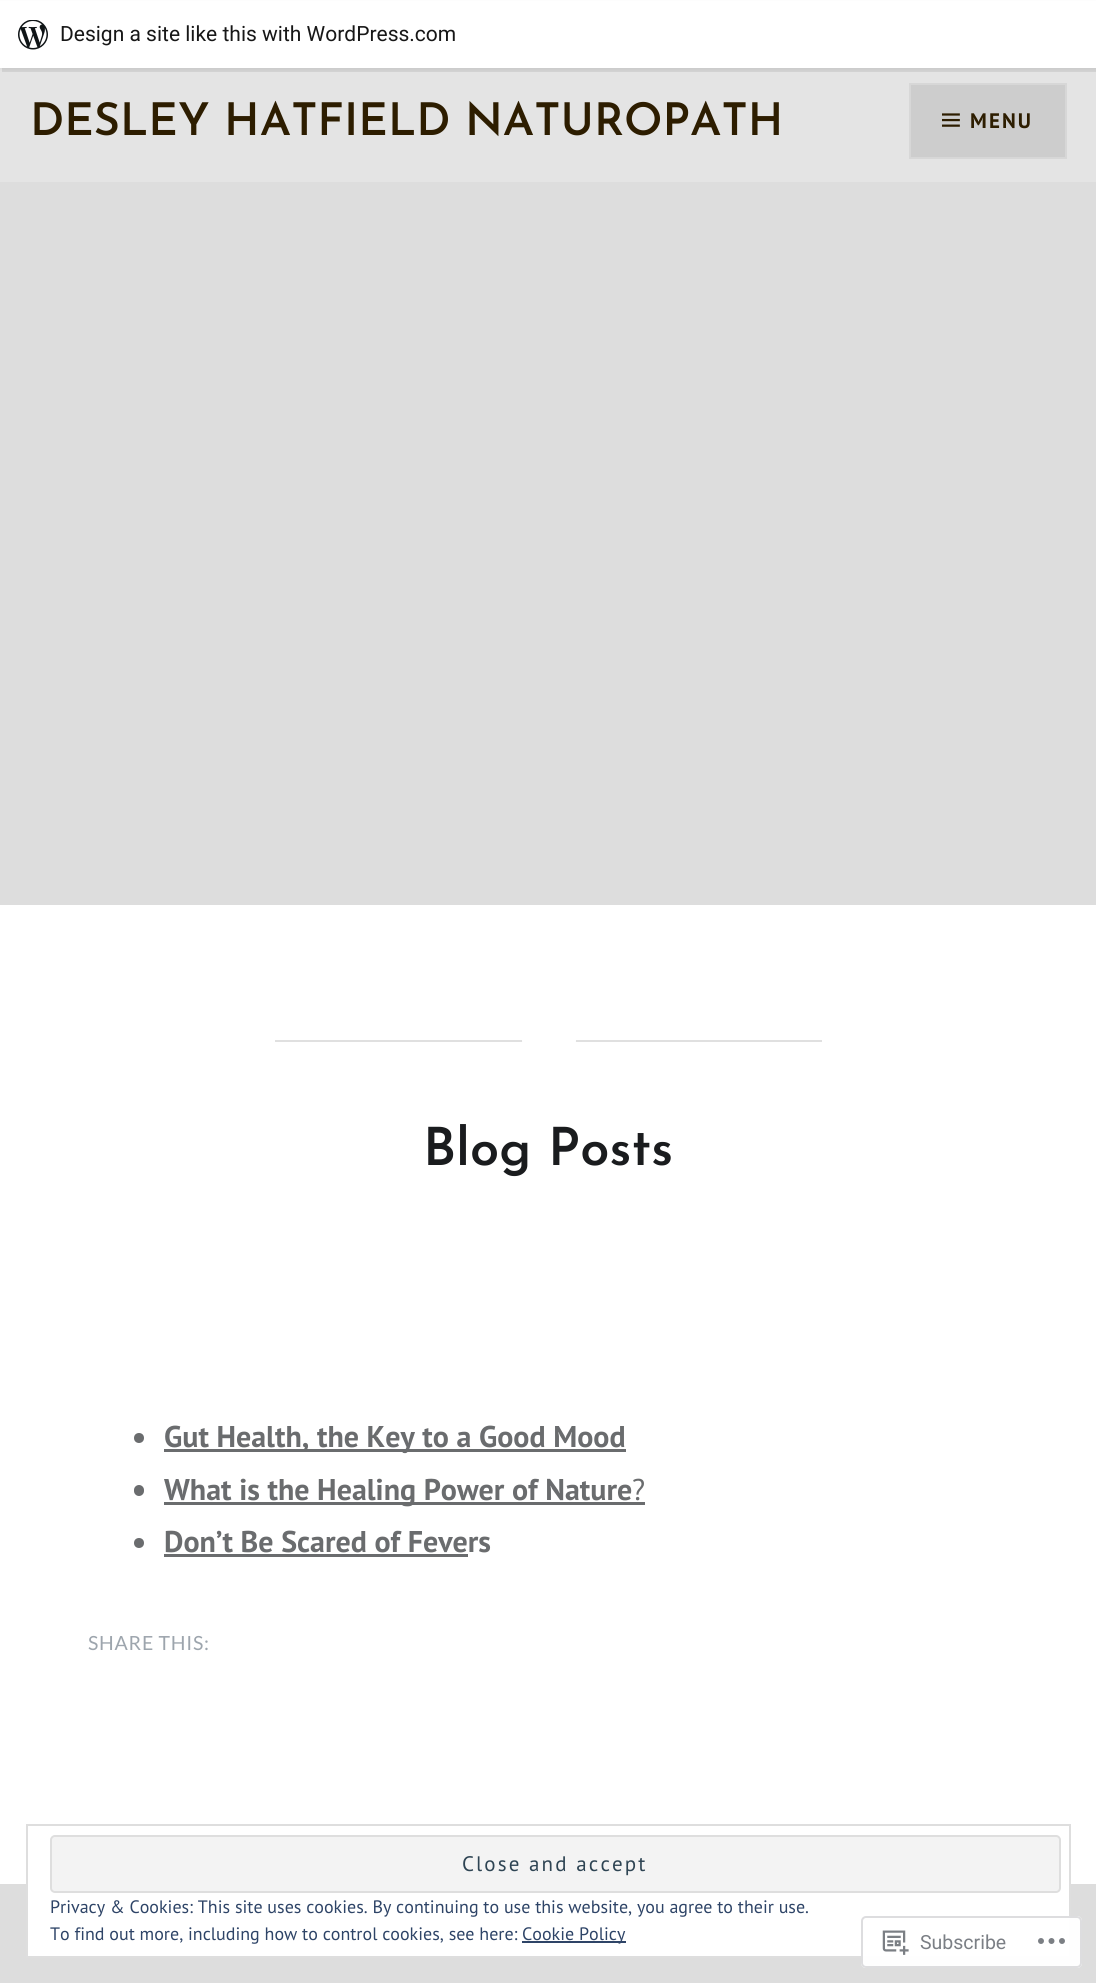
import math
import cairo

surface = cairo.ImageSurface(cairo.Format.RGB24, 1096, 1983)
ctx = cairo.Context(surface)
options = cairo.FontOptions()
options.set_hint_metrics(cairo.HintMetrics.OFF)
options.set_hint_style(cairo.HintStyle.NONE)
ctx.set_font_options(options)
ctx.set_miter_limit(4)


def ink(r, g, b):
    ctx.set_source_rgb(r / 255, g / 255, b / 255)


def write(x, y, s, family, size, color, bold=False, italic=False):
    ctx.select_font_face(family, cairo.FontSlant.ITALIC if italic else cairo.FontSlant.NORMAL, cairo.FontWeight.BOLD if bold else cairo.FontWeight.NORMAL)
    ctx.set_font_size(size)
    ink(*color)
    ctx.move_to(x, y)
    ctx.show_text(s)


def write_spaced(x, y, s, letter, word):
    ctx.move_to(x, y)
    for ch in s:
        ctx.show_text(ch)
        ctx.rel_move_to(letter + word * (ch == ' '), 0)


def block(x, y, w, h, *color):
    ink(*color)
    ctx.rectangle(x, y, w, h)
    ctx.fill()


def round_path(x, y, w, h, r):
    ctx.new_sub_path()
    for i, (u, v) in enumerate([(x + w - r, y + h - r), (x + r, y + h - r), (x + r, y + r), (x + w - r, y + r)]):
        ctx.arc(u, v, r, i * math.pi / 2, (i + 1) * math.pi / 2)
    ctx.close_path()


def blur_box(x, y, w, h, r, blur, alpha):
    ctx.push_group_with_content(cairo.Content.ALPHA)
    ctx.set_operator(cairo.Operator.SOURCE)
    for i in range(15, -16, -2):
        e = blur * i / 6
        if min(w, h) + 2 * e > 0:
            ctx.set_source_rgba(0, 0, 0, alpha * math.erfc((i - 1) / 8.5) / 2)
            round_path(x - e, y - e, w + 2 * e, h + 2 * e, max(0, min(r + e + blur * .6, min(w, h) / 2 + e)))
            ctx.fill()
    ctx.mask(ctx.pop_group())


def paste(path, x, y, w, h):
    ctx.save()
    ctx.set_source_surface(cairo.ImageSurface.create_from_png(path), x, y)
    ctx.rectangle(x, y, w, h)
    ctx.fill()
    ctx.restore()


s1 = dict(family="Roboto", size=21, color=(23, 23, 23))
s2 = dict(family="Josefin Sans Thin", size=45, color=(45, 29, 0))
s3 = dict(family="Josefin Sans Thin", size=52.5, color=(26, 28, 30))
s4 = dict(family="PT Sans", size=30, color=(106, 108, 110), bold=True)
s5 = dict(family="PT Sans", size=30, color=(106, 108, 110))
s6 = dict(family="PT Sans", size=18, color=(46, 68, 103))
s7 = dict(family="Roboto", size=19.5, color=(123, 127, 133))

ink(255, 255, 255)
ctx.paint()
block(0, 68, 1096, 114, 228, 228, 228)
ink(0, 0, 0)
blur_box(0, 2, 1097, 67, 0, 1.5, 0.05)
ctx.set_source_rgba(0, 0, 0, 0.08)
ctx.new_path()
ctx.move_to(2, 68)
ctx.line_to(2, 72)
ctx.line_to(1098, 72)
ctx.line_to(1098, 5)
ctx.line_to(1096, 5)
ctx.line_to(1096, 68)
ctx.close_path()
ctx.fill()
block(0, 1, 1096, 67, 255, 255, 255)
paste("pic1.png", 18, 20, 30, 30)
write(60, 41, "Design a site like this with WordPress.com", **s1)
write(30, 135, "DESLEY HATFIELD NATUROPATH", **s2)
ink(205, 205, 205)
ctx.rectangle(910, 84, 156, 74)
ctx.fill_preserve()
ink(215, 215, 215)
ctx.stroke()
paste("pic2.png", 942, 113, 18, 14)
ctx.select_font_face("PT Sans", cairo.FontSlant.NORMAL, cairo.FontWeight.BOLD)
ctx.set_font_size(21)
ink(45, 29, 0)
write_spaced(970, 128, "MENU", 2.1, 0)
block(0, 182, 1096, 723, 221, 221, 221)
block(275, 1040, 547, 2, 224, 224, 224)
ink(255, 255, 255)
ctx.new_path()
ctx.arc(549, 1040, 27, 0, 2 * math.pi)
ctx.fill()
write(423, 1165, "Blog Posts", **s3)
ink(106, 108, 110)
ctx.new_path()
ctx.arc(139, 1438, 5, 0, 2 * math.pi)
ctx.fill()
block(164, 1449, 462, 3, 106, 108, 110)
write(164, 1447, "Gut Health, the Key to a Good Mood", **s4)
round_path(134, 1485, 10, 11, 5)
ctx.fill()
block(164, 1502, 481, 3, 106, 108, 110)
write(164, 1500, "What is the Healing Power of Nature", **s4)
write(632, 1500, "?", **s5)
ctx.new_path()
ctx.arc(139, 1543, 5, 0, 2 * math.pi)
ctx.fill()
write(164, 1552, "Don’t Be Scared of Fevers", **s4)
block(164, 1554, 304, 3, 106, 108, 110)
ctx.select_font_face("Lato")
ctx.set_font_size(19.5)
ink(157, 165, 173)
write_spaced(88, 1650, "SHARE THIS:", 0.75, 0)
block(0, 1884, 1096, 99, 221, 221, 221)
block(28, 1884, 1041, 72, 255, 255, 255)
ctx.rectangle(27, 1825, 1043, 132)
ink(222, 222, 222)
ctx.stroke()
ink(243, 243, 243)
round_path(51, 1836, 1009, 56, 4)
ctx.fill_preserve()
ink(222, 222, 222)
ctx.stroke()
ctx.select_font_face("PT Sans")
ctx.set_font_size(21)
ink(46, 68, 83)
write_spaced(462, 1871, "Close and accept", 2.1, 0)
write(50, 1913, "Privacy & Cookies: This site uses cookies. By continuing to use this website, you agree to their use.", **s6)
write(50, 1940, "To find out more, including how to control cookies, see here:", **s6)
block(522, 1941, 104, 2, 46, 68, 103)
write(522, 1940, "Cookie Policy", **s6)
ctx.set_source_rgba(1, 1, 1, 0.98)
round_path(861, 1916, 221, 52, 5)
ctx.fill()
round_path(862, 1917, 219, 50, 4)
ctx.set_source_rgba(0.863, 0.863, 0.871, 0.98)
ctx.stroke()
paste("pic3.png", 882, 1930, 27, 25)
write(920, 1949, "Subscribe", **s7)
paste("pic4.png", 1038, 1938, 27, 6)
surface.write_to_png("screenshot.png")
